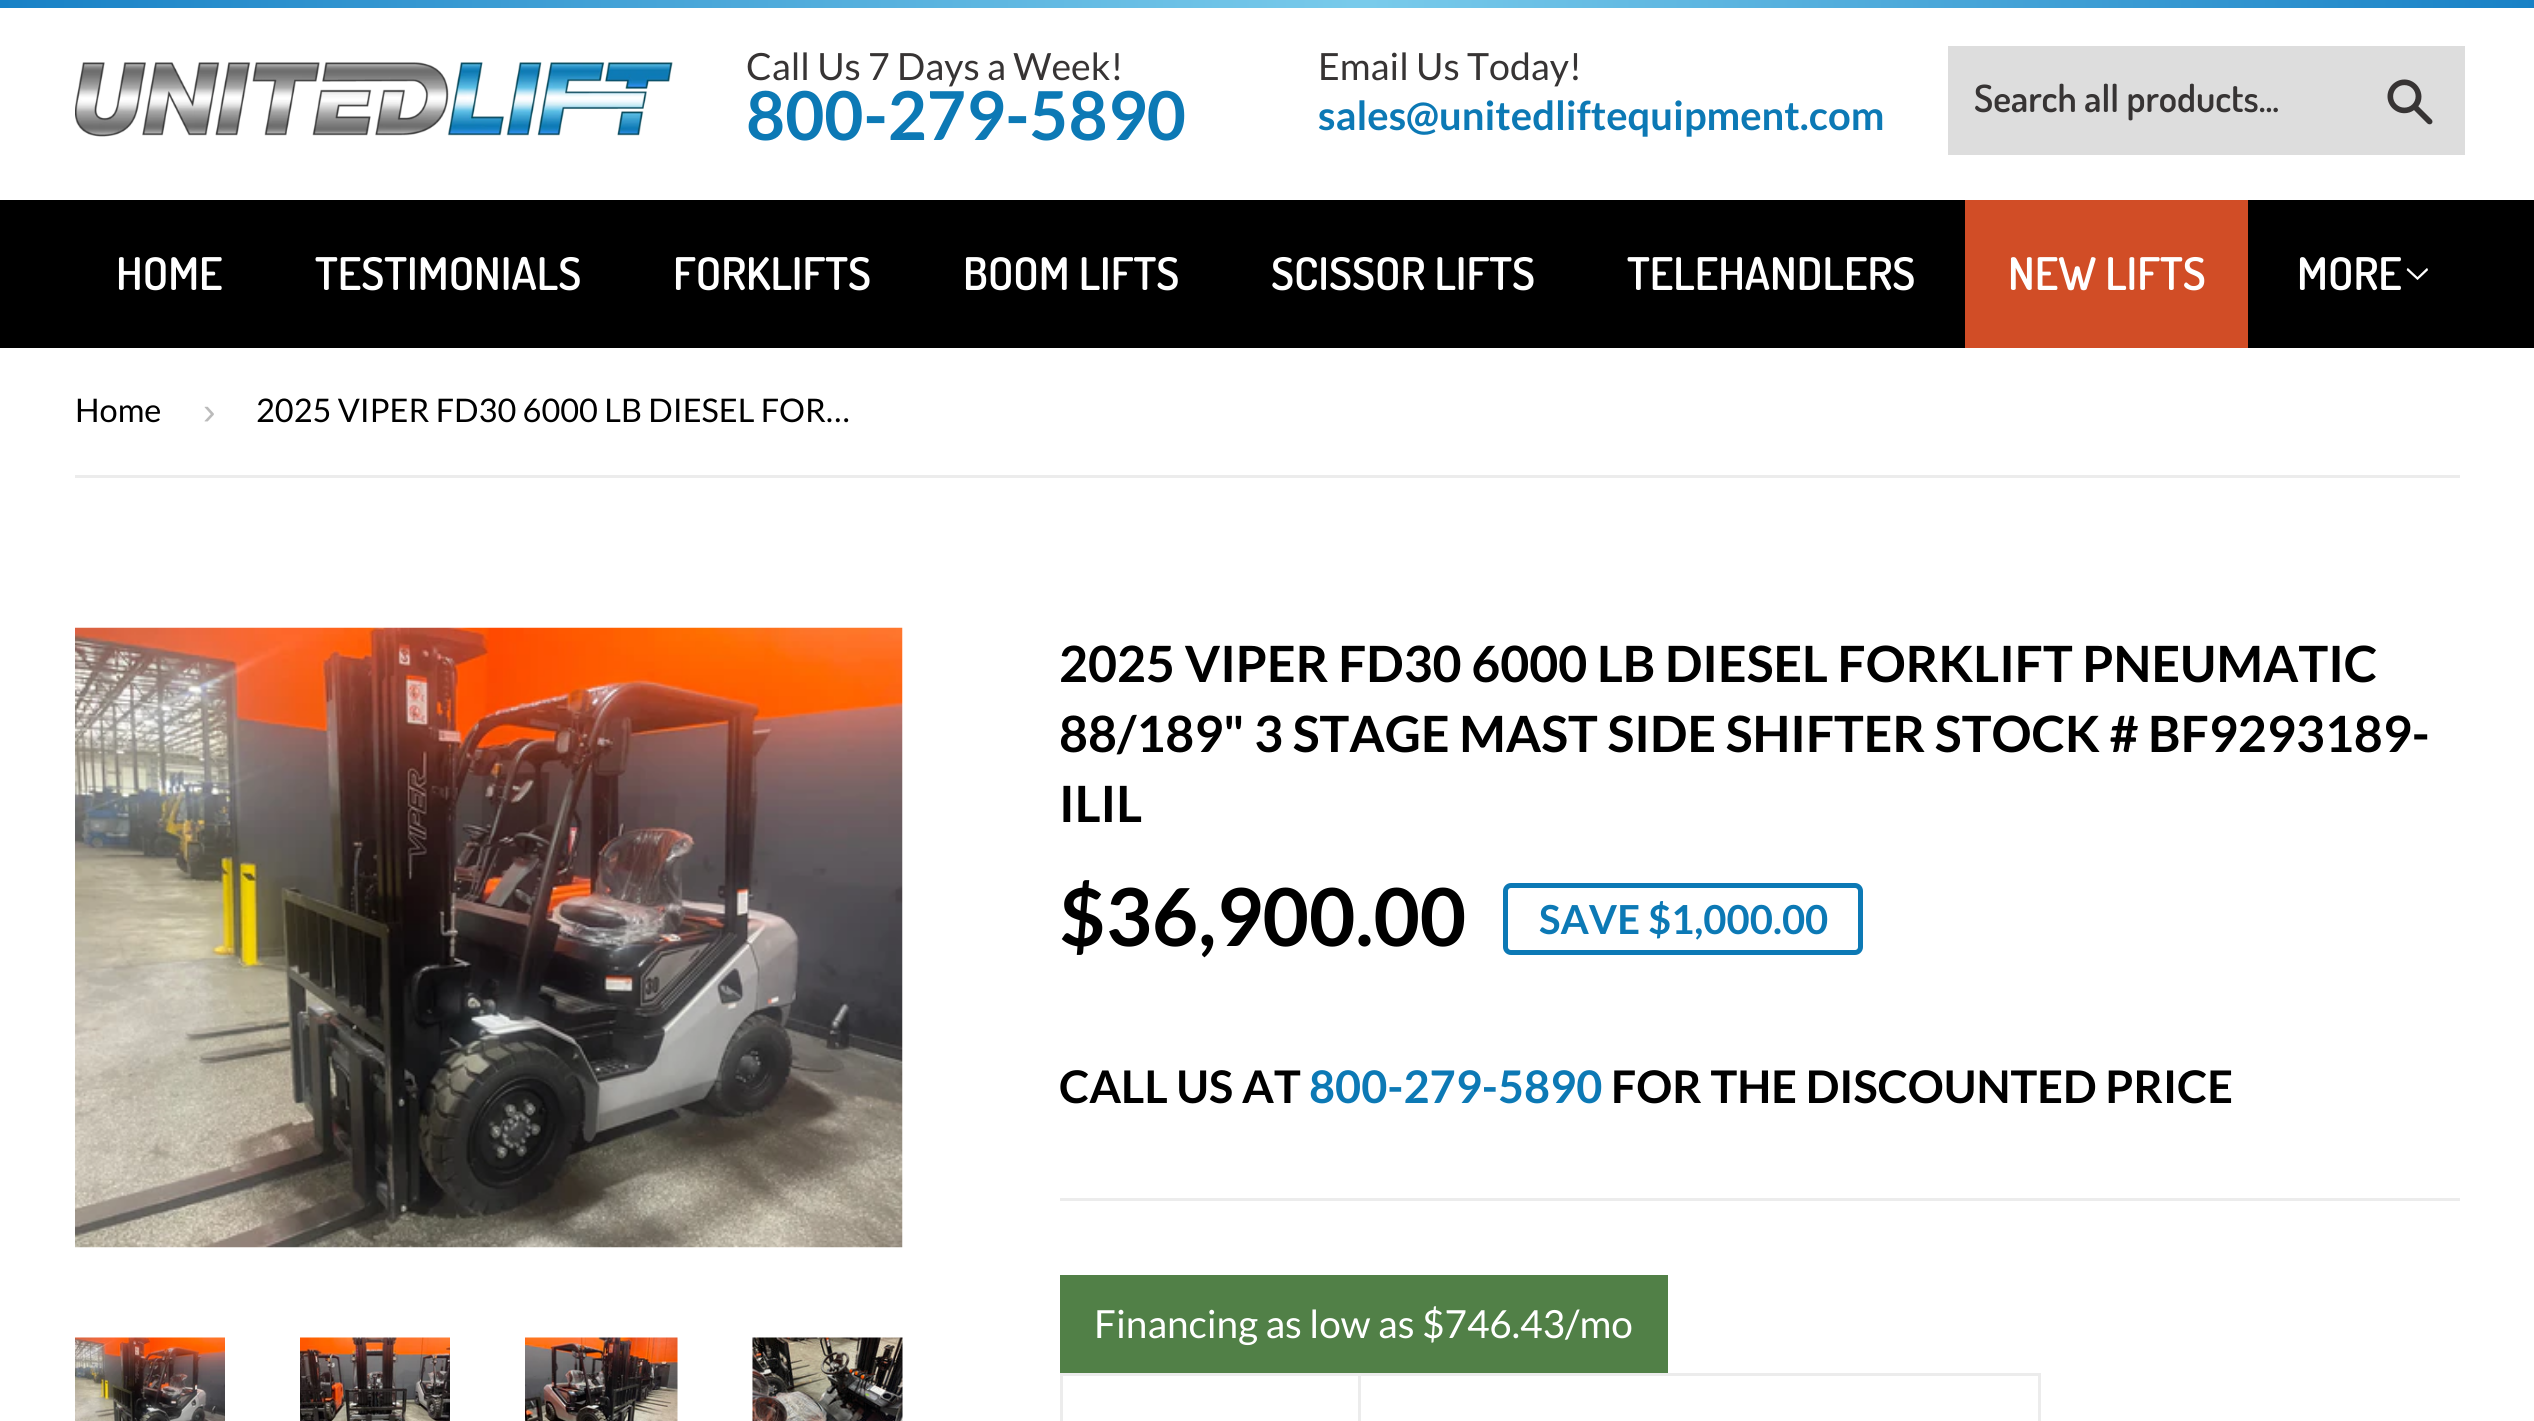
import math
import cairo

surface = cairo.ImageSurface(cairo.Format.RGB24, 2534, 1421)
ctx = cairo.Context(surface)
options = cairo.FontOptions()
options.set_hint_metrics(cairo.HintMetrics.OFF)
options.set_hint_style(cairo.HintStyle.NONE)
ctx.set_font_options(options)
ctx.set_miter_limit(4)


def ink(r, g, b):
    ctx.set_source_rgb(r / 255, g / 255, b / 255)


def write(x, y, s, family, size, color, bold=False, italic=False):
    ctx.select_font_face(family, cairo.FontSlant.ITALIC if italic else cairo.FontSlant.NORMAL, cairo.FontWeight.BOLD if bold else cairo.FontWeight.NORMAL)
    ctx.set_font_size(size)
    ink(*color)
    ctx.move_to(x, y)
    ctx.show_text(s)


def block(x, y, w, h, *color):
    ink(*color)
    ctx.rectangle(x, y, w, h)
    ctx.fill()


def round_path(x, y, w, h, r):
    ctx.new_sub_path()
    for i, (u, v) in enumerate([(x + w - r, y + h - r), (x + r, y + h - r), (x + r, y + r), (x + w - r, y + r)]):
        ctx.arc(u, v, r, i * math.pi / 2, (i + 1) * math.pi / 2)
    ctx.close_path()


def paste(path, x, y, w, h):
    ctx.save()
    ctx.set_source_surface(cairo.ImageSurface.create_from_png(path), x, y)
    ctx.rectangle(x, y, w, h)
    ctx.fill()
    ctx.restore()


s1 = dict(family="Lato", size=37.5, color=(55, 52, 52))
s2 = dict(family="Lato", size=67.5, color=(12, 121, 181), bold=True)
s3 = dict(family="Lato", size=40, color=(12, 121, 181), bold=True)
s4 = dict(family="Dosis SemiBold", size=37.5, color=(55, 52, 52))
s5 = dict(family="Dosis SemiBold", size=45, color=(255, 255, 255))
s6 = dict(family="Lato", size=32.5, color=(0, 0, 0))
s7 = dict(family="Liberation Sans", size=37.5, color=(187, 187, 187))
s8 = dict(family="Lato", size=50, color=(0, 0, 0), bold=True)
s9 = dict(family="Lato", size=80, color=(0, 0, 0), bold=True)
s10 = dict(family="Lato", size=45, color=(0, 0, 0), bold=True)
s11 = dict(family="Lato", size=45, color=(12, 121, 181), bold=True)
s12 = dict(family="Lato", size=38.75, color=(255, 255, 255))

ink(255, 255, 255)
ctx.paint()
gradient = cairo.LinearGradient(0, 3.8, 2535, 3.7)
gradient.add_color_stop_rgba(0, 0.094, 0.506, 0.776, 1)
gradient.add_color_stop_rgba(0.54, 0.475, 0.796, 0.922, 1)
gradient.add_color_stop_rgba(1, 0.094, 0.506, 0.776, 1)
ctx.set_source(gradient)
ctx.rectangle(0, 0, 2534, 8)
ctx.fill()
paste("pic1.png", 75, 62, 598, 75)
write(746, 80, "Call Us 7 Days a Week!", **s1)
write(746, 140, "800-279-5890", **s2)
write(1318, 80, "Email Us Today!", **s1)
write(1318, 130, "sales@unitedliftequipment.com", **s3)
block(1948, 46, 517, 109, 221, 221, 221)
write(1974, 112, "Search all products...", **s4)
paste("pic2.png", 2387, 79, 46, 46)
block(0, 200, 2534, 148, 0, 0, 0)
write(116, 290, "HOME", **s5)
write(315, 290, "TESTIMONIALS", **s5)
write(673, 290, "FORKLIFTS", **s5)
write(963, 290, "BOOM LIFTS", **s5)
write(1271, 290, "SCISSOR LIFTS", **s5)
write(1627, 290, "TELEHANDLERS", **s5)
block(1965, 200, 283, 148, 209, 77, 38)
write(2008, 290, "NEW LIFTS", **s5)
write(2297, 290, "MORE", **s5)
paste("pic3.png", 2406, 268, 22, 12)
block(75, 475, 2385, 3, 236, 236, 236)
write(75, 422, "Home", **s6)
write(203, 424, "›", **s7)
write(256, 422, "2025 VIPER FD30 6000 LB DIESEL FOR…", **s6)
paste("pic4.png", 75, 627, 828, 621)
paste("pic5.png", 75, 1337, 150, 84)
paste("pic6.png", 300, 1337, 150, 84)
paste("pic7.png", 525, 1337, 153, 84)
paste("pic8.png", 752, 1337, 151, 84)
write(1059, 682, "2025 VIPER FD30 6000 LB DIESEL FORKLIFT PNEUMATIC", **s8)
write(1059, 752, "88/189\" 3 STAGE MAST SIDE SHIFTER STOCK # BF9293189-", **s8)
write(1059, 822, "ILIL", **s8)
write(1059, 946, "$36,900.00", **s9)
round_path(1505.5, 885.5, 355, 67, 5.5)
ink(12, 121, 181)
ctx.set_line_width(5)
ctx.stroke()
write(1539, 934, "SAVE $1,000.00", **s3)
write(1059, 1103, "CALL US AT", **s10)
write(1309, 1103, "800-279-5890", **s11)
write(1611, 1103, "FOR THE DISCOUNTED PRICE", **s10)
block(1060, 1198, 1400, 3, 236, 236, 236)
block(1060, 1275, 608, 98, 81, 128, 71)
write(1094, 1338, "Financing as low as $746.43/mo", **s12)
block(1358, 1373, 682, 3, 236, 236, 236)
block(1358, 1373, 3, 48, 236, 236, 236)
block(1060, 1373, 300, 3, 236, 236, 236)
block(1060, 1373, 3, 48, 236, 236, 236)
block(2038, 1373, 3, 48, 236, 236, 236)
surface.write_to_png("screenshot.png")
